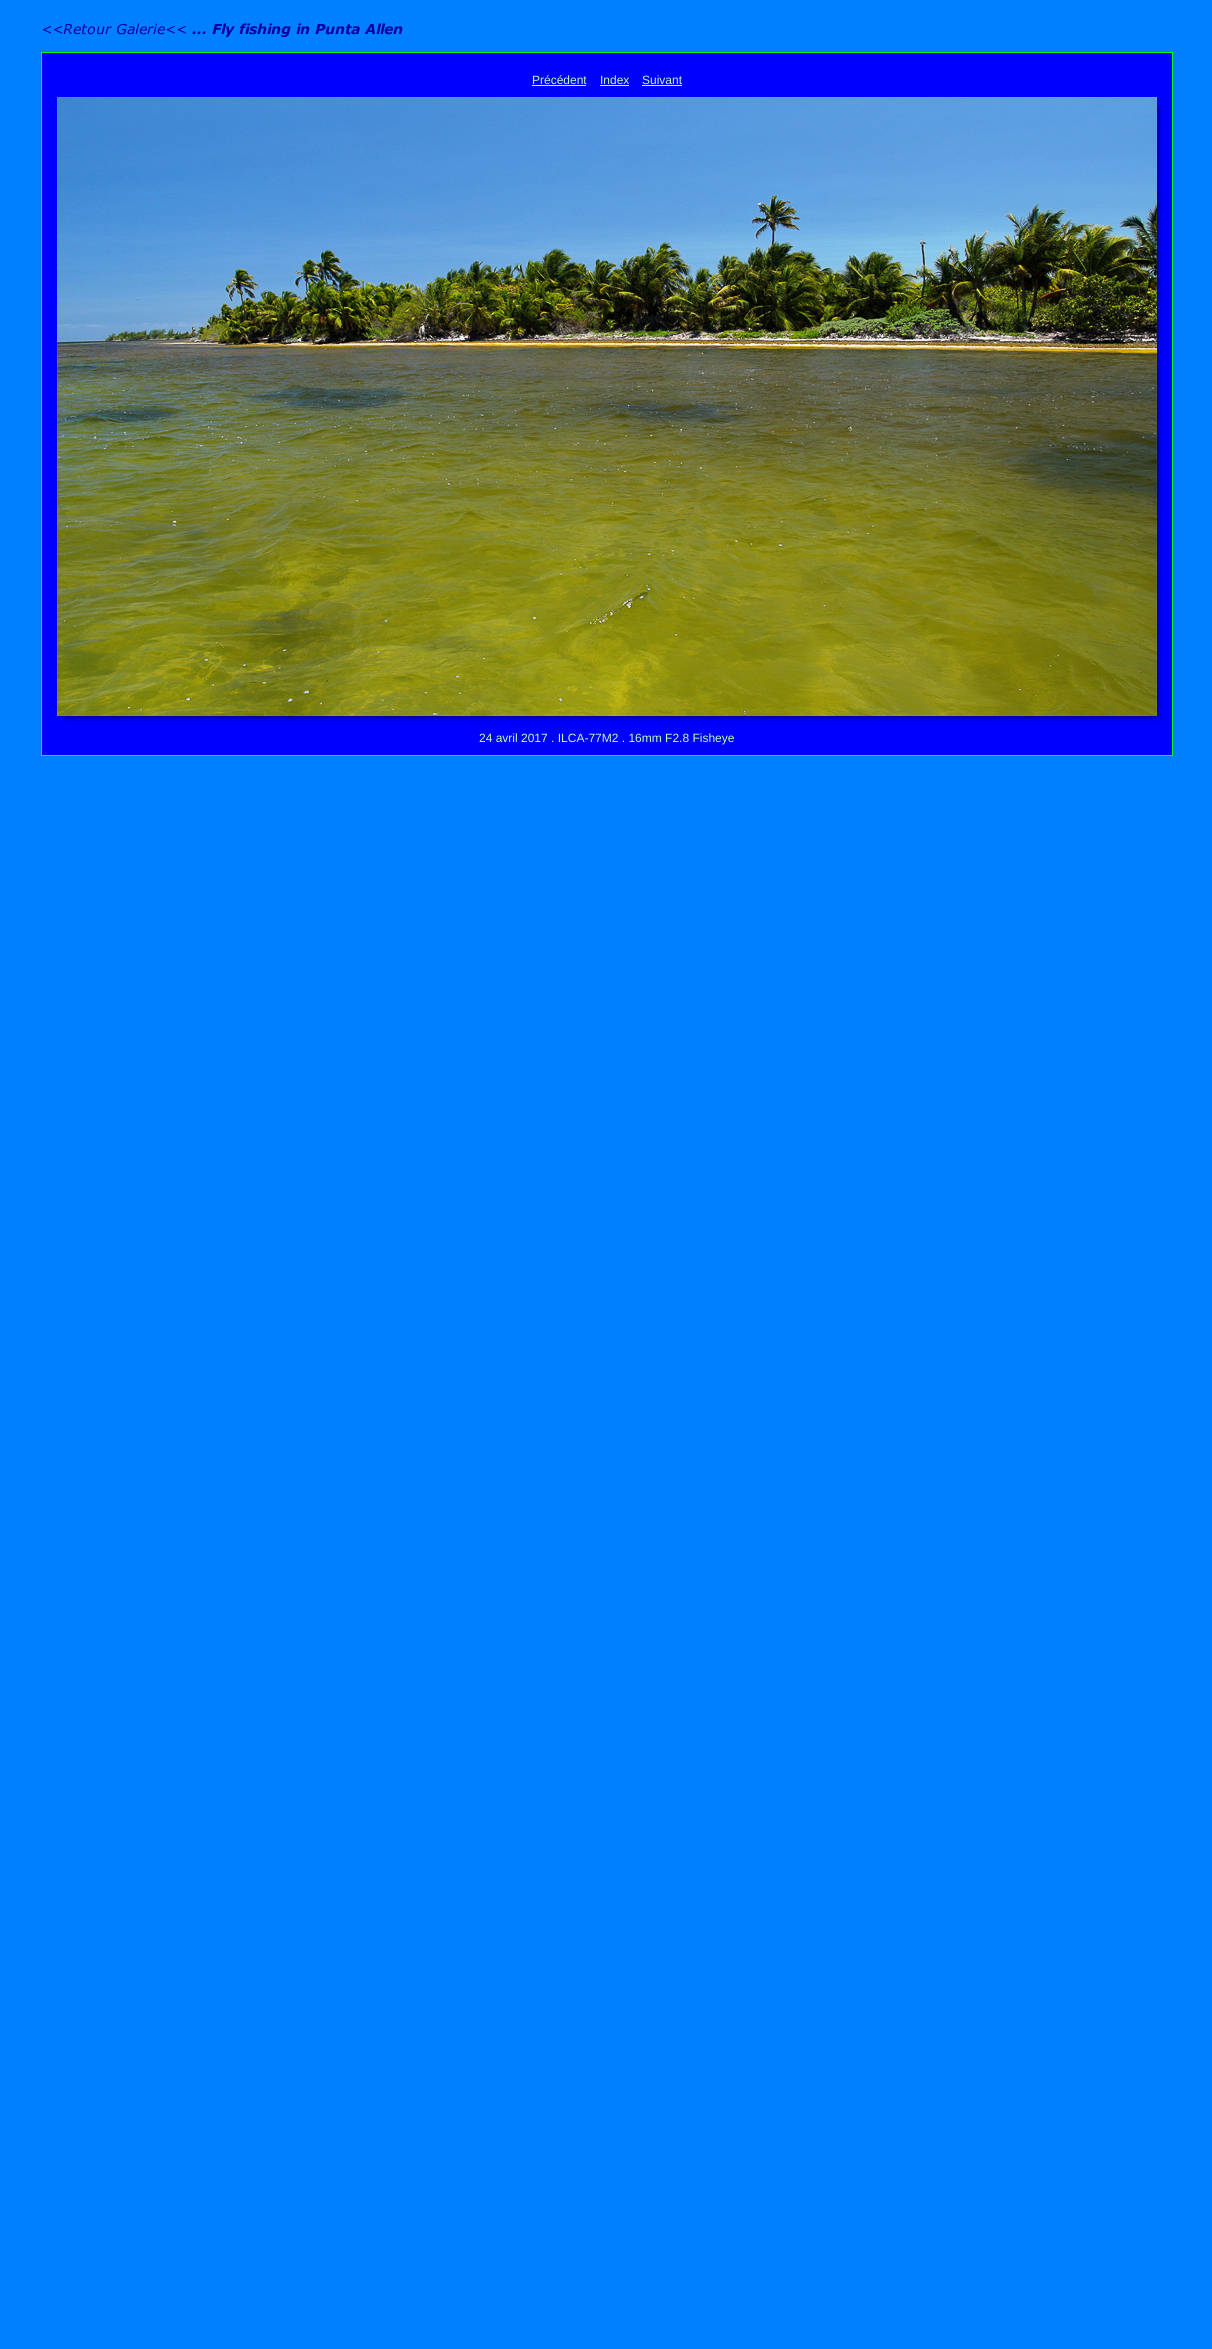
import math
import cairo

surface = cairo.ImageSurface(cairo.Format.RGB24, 1212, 2349)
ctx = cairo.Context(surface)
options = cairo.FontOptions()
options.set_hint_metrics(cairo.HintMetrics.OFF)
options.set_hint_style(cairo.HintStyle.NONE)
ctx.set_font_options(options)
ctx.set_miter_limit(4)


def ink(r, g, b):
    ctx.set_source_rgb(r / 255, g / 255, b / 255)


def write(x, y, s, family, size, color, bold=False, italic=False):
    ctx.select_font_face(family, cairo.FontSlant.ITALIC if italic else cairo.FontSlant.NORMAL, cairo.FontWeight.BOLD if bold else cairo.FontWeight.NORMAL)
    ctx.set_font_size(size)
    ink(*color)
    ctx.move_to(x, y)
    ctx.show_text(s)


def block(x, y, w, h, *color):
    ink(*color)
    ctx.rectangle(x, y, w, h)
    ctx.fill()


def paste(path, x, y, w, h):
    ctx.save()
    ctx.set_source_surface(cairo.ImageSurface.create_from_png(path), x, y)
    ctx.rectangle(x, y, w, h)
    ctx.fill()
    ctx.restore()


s1 = dict(family="Liberation Sans", size=12, color=(188, 255, 184))

ink(0, 128, 255)
ctx.paint()
paste("pic1.png", 43, 23, 360, 14)
ink(0, 0, 255)
ctx.rectangle(41.5, 52.5, 1131, 703)
ctx.fill_preserve()
ink(0, 255, 0)
ctx.set_line_width(1)
ctx.stroke()
write(532, 84, "Précédent", **s1)
block(532, 85, 54, 1, 188, 255, 184)
write(600, 84, "Index", **s1)
block(600, 85, 29, 1, 188, 255, 184)
write(642, 84, "Suivant", **s1)
block(642, 85, 40, 1, 188, 255, 184)
paste("pic2.png", 67, 110, 1096, 612)
paste("pic3.png", 57, 97, 1100, 619)
paste("pic4.png", 1157, 102, 5, 8)
paste("pic5.png", 59, 716, 8, 5)
write(479, 742, "24 avril 2017 . ILCA-77M2 . 16mm F2.8 Fisheye", **s1)
surface.write_to_png("screenshot.png")
